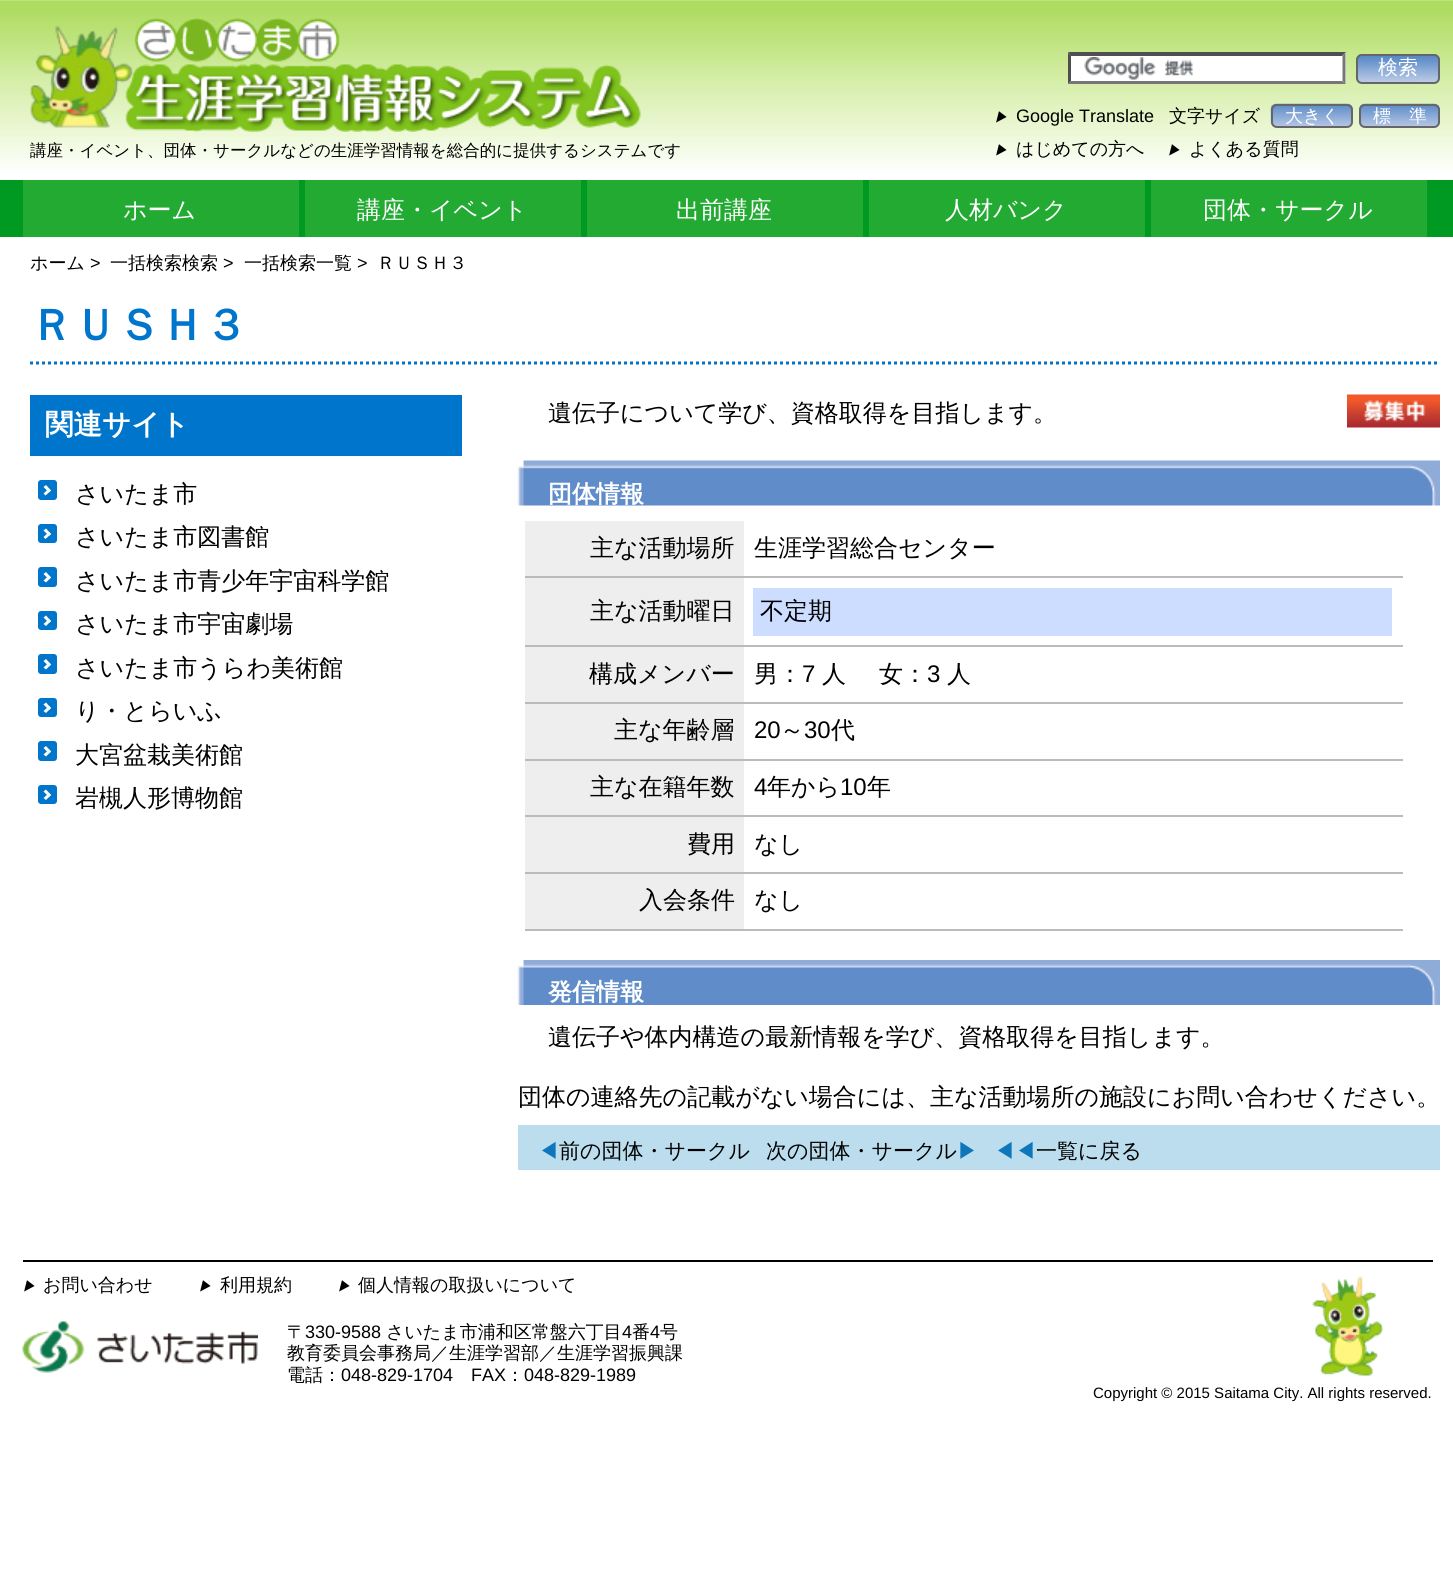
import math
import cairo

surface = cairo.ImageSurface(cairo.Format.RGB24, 1453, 1588)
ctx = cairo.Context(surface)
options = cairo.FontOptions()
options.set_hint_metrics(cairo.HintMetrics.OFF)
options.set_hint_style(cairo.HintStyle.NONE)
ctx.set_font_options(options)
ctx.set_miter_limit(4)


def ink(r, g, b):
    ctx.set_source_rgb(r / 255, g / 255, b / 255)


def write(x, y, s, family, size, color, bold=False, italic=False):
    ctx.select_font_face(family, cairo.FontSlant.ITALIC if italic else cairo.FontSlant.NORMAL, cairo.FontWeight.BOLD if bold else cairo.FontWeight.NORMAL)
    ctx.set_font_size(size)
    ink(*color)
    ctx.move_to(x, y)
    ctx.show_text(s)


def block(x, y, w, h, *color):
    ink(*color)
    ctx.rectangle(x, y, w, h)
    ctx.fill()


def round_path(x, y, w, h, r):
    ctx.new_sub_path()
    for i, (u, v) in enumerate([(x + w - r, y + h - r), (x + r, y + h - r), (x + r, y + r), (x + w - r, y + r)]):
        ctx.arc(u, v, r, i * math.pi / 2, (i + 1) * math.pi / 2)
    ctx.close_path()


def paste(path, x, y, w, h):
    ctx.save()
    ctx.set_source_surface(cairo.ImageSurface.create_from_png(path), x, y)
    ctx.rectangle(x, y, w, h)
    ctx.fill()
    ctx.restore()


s1 = dict(family="WenQuanYi Zen Hei Medium", size=16.5, color=(0, 0, 0))
s2 = dict(family="WenQuanYi Zen Hei Medium", size=20, color=(255, 255, 255))
s3 = dict(family="WenQuanYi Zen Hei Medium", size=14, color=(0, 0, 0), italic=True)
s4 = dict(family="Liberation Sans", size=18, color=(0, 0, 0))
s5 = dict(family="WenQuanYi Zen Hei Medium", size=18, color=(0, 0, 0))
s6 = dict(family="WenQuanYi Zen Hei Medium", size=18, color=(255, 255, 255))
s7 = dict(family="WenQuanYi Zen Hei Medium", size=24, color=(255, 255, 255))
s8 = dict(family="WenQuanYi Zen Hei", size=43.5, color=(0, 117, 204), bold=True)
s9 = dict(family="WenQuanYi Zen Hei", size=28.5, color=(255, 255, 255), bold=True)
s10 = dict(family="WenQuanYi Zen Hei Medium", size=24, color=(0, 0, 0))
s11 = dict(family="WenQuanYi Zen Hei", size=24, color=(255, 255, 255), bold=True)
s12 = dict(family="Liberation Sans", size=24, color=(0, 0, 0))
s13 = dict(family="WenQuanYi Zen Hei Medium", size=21, color=(15, 118, 187))
s14 = dict(family="WenQuanYi Zen Hei Medium", size=21, color=(0, 0, 0))
s15 = dict(family="Liberation Sans", size=15, color=(0, 0, 0))

ink(255, 255, 255)
ctx.paint()
paste("pic1.png", 0, 0, 1453, 180)
paste("pic2.png", 30, 18, 611, 114)
write(30, 156, "講座・イベント、団体・サークルなどの生涯学習情報を総合的に提供するシステムです", **s1)
block(1068, 53, 278, 31, 255, 255, 255)
paste("pic3.png", 1084, 57, 110, 23)
ink(79, 79, 79)
ctx.new_path()
ctx.move_to(1068, 52)
ctx.line_to(1346, 52)
ctx.line_to(1342, 56)
ctx.line_to(1071, 56)
ctx.close_path()
ctx.fill()
ink(118, 118, 118)
ctx.new_path()
ctx.move_to(1345.5, 52.5)
ctx.line_to(1345.5, 84)
ctx.line_to(1342.5, 81)
ctx.line_to(1342.5, 55.5)
ctx.close_path()
ctx.fill()
ctx.new_path()
ctx.move_to(1346, 84)
ctx.line_to(1068, 84)
ctx.line_to(1071, 81)
ctx.line_to(1342, 81)
ctx.close_path()
ctx.fill()
ink(79, 79, 79)
ctx.new_path()
ctx.move_to(1068, 84)
ctx.line_to(1068, 52.5)
ctx.line_to(1071, 55.5)
ctx.line_to(1071, 81)
ctx.close_path()
ctx.fill()
paste("pic4.png", 1356, 54, 84, 30)
round_path(1357, 55, 82, 28, 5)
ink(102, 102, 102)
ctx.stroke()
write(1378, 74, "検索", **s2)
write(994, 122, "▶", **s3)
write(1016, 122, "Google Translate", **s4)
write(1169, 122, "文字サイズ", **s5)
paste("pic5.png", 1270, 103, 83, 25)
paste("pic6.png", 1359, 103, 81, 25)
round_path(1272, 105, 80, 22, 5)
ink(102, 102, 102)
ctx.stroke()
write(1285, 122, "大きく", **s6)
round_path(1360, 105, 79, 22, 5)
ink(102, 102, 102)
ctx.stroke()
write(1373, 122, "標　準", **s6)
write(994, 155, "▶", **s3)
write(1016, 155, "はじめての方へ", **s5)
write(1167, 155, "▶", **s3)
write(1189, 155, "よくある質問", **s5)
block(0, 180, 1453, 57, 0, 153, 34)
block(23, 180, 276, 57, 34, 170, 51)
write(123, 218, "ホーム", **s7)
block(305, 180, 276, 57, 34, 170, 51)
write(357, 218, "講座・イベント", **s7)
block(587, 180, 276, 57, 34, 170, 51)
write(676, 218, "出前講座", **s7)
block(869, 180, 276, 57, 34, 170, 51)
write(945, 218, "人材バンク", **s7)
block(1151, 180, 276, 57, 34, 170, 51)
write(1203, 218, "団体・サークル", **s7)
write(30, 269, "ホーム", **s5)
write(90, 269, ">", **s4)
write(110, 269, "一括検索検索", **s5)
write(223, 269, ">", **s4)
write(244, 269, "一括検索一覧", **s5)
write(357, 269, ">", **s4)
write(377, 269, "ＲＵＳＨ３", **s5)
ctx.new_path()
ctx.move_to(30, 363)
ctx.line_to(1440, 363)
ink(0, 117, 204)
ctx.set_line_width(3)
ctx.set_dash([3, 3])
ctx.stroke()
write(30, 340, "ＲＵＳＨ３", **s8)
block(30, 395, 432, 61, 0, 117, 204)
write(45, 434, "関連サイト", **s9)
ink(0, 117, 204)
round_path(38, 480, 19, 20, 3)
ctx.fill()
write(75, 502, "さいたま市", **s10)
ink(255, 255, 255)
ctx.new_path()
ctx.move_to(46, 485)
ctx.line_to(51, 490.5)
ctx.line_to(49, 492.5)
ctx.line_to(43.5, 487)
ctx.close_path()
ctx.fill()
ctx.new_path()
ctx.move_to(49, 488.5)
ctx.line_to(51, 490.5)
ctx.line_to(45.5, 495.5)
ctx.line_to(43.5, 493.5)
ctx.close_path()
ctx.fill()
ink(0, 117, 204)
round_path(38, 524, 19, 19, 3)
ctx.fill()
write(75, 545, "さいたま市図書館", **s10)
ink(255, 255, 255)
ctx.new_path()
ctx.move_to(46, 528.5)
ctx.line_to(51, 534)
ctx.line_to(49, 536)
ctx.line_to(43.5, 530.5)
ctx.close_path()
ctx.fill()
ctx.new_path()
ctx.move_to(49, 532)
ctx.line_to(51, 534)
ctx.line_to(45.5, 539)
ctx.line_to(43.5, 537)
ctx.close_path()
ctx.fill()
ink(0, 117, 204)
round_path(38, 567, 19, 20, 3)
ctx.fill()
write(75, 589, "さいたま市青少年宇宙科学館", **s10)
ink(255, 255, 255)
ctx.new_path()
ctx.move_to(46, 572)
ctx.line_to(51, 577.5)
ctx.line_to(49, 579.5)
ctx.line_to(43.5, 574)
ctx.close_path()
ctx.fill()
ctx.new_path()
ctx.move_to(49, 575.5)
ctx.line_to(51, 577.5)
ctx.line_to(46, 582.5)
ctx.line_to(43.5, 580.5)
ctx.close_path()
ctx.fill()
ink(0, 117, 204)
round_path(38, 611, 19, 19, 3)
ctx.fill()
write(75, 632, "さいたま市宇宙劇場", **s10)
ink(255, 255, 255)
ctx.new_path()
ctx.move_to(46, 615.5)
ctx.line_to(51, 621)
ctx.line_to(49, 623)
ctx.line_to(43.5, 617.5)
ctx.close_path()
ctx.fill()
ctx.new_path()
ctx.move_to(49, 619)
ctx.line_to(51, 621)
ctx.line_to(46, 626)
ctx.line_to(43.5, 624)
ctx.close_path()
ctx.fill()
ink(0, 117, 204)
round_path(38, 654, 19, 20, 3)
ctx.fill()
write(75, 676, "さいたま市うらわ美術館", **s10)
ink(255, 255, 255)
ctx.new_path()
ctx.move_to(46, 659)
ctx.line_to(51, 664.5)
ctx.line_to(49, 666.5)
ctx.line_to(43.5, 661)
ctx.close_path()
ctx.fill()
ctx.new_path()
ctx.move_to(49, 662.5)
ctx.line_to(51, 664.5)
ctx.line_to(46, 669.5)
ctx.line_to(43.5, 667.5)
ctx.close_path()
ctx.fill()
ink(0, 117, 204)
round_path(38, 698, 19, 19, 3)
ctx.fill()
write(75, 719, "り・とらいふ", **s10)
ink(255, 255, 255)
ctx.new_path()
ctx.move_to(46, 702.5)
ctx.line_to(51, 708)
ctx.line_to(49, 710)
ctx.line_to(43.5, 704.5)
ctx.close_path()
ctx.fill()
ctx.new_path()
ctx.move_to(49, 706)
ctx.line_to(51, 708)
ctx.line_to(46, 713)
ctx.line_to(43.5, 711)
ctx.close_path()
ctx.fill()
ink(0, 117, 204)
round_path(38, 741, 19, 20, 3)
ctx.fill()
write(75, 763, "大宮盆栽美術館", **s10)
ink(255, 255, 255)
ctx.new_path()
ctx.move_to(46, 746)
ctx.line_to(51, 751.5)
ctx.line_to(49, 753.5)
ctx.line_to(43.5, 748)
ctx.close_path()
ctx.fill()
ctx.new_path()
ctx.move_to(49, 749.5)
ctx.line_to(51, 751.5)
ctx.line_to(46, 756.5)
ctx.line_to(43.5, 754.5)
ctx.close_path()
ctx.fill()
ink(0, 117, 204)
round_path(38, 785, 19, 19, 3)
ctx.fill()
write(75, 806, "岩槻人形博物館", **s10)
ink(255, 255, 255)
ctx.new_path()
ctx.move_to(46, 789.5)
ctx.line_to(51, 795)
ctx.line_to(49, 797)
ctx.line_to(43.5, 791.5)
ctx.close_path()
ctx.fill()
ctx.new_path()
ctx.move_to(49, 793)
ctx.line_to(51, 795)
ctx.line_to(46, 800)
ctx.line_to(43.5, 798)
ctx.close_path()
ctx.fill()
write(548, 421, "遺伝子について学び、資格取得を目指します。", **s10)
paste("pic7.png", 517, 460, 923, 46)
write(548, 502, "団体情報", **s11)
block(525, 521, 219, 55, 238, 238, 238)
write(590, 556, "主な活動場所", **s10)
block(525, 576, 878, 2, 187, 187, 187)
write(754, 556, "生涯学習総合センター", **s10)
block(525, 578, 219, 67, 238, 238, 238)
write(590, 619, "主な活動曜日", **s10)
block(525, 645, 878, 2, 187, 187, 187)
block(753, 588, 639, 48, 204, 221, 255)
write(760, 619, "不定期", **s10)
block(525, 647, 219, 55, 238, 238, 238)
write(589, 682, "構成メンバー", **s10)
block(525, 702, 878, 2, 187, 187, 187)
write(754, 682, "男：", **s10)
write(802, 682, "7", **s12)
write(822, 682, "人", **s10)
write(879, 682, "女：", **s10)
write(927, 682, "3", **s12)
write(947, 682, "人", **s10)
block(525, 704, 219, 55, 238, 238, 238)
write(614, 738, "主な年齢層", **s10)
block(525, 759, 878, 2, 187, 187, 187)
write(754, 738, "20", **s12)
write(780, 738, "～", **s10)
write(804, 738, "30", **s12)
write(831, 738, "代", **s10)
block(525, 761, 219, 54, 238, 238, 238)
write(590, 795, "主な在籍年数", **s10)
block(525, 815, 878, 2, 187, 187, 187)
write(754, 795, "4", **s12)
write(767, 795, "年から", **s10)
write(840, 795, "10", **s12)
write(867, 795, "年", **s10)
block(525, 817, 219, 55, 238, 238, 238)
write(687, 852, "費用", **s10)
block(525, 872, 878, 2, 187, 187, 187)
write(754, 852, "なし", **s10)
block(525, 874, 219, 55, 238, 238, 238)
write(639, 908, "入会条件", **s10)
block(525, 929, 878, 2, 187, 187, 187)
write(754, 908, "なし", **s10)
paste("pic8.png", 517, 960, 923, 45)
write(548, 1000, "発信情報", **s11)
write(548, 1045, "遺伝子や体内構造の最新情報を学び、資格取得を目指します。", **s10)
paste("pic9.png", 1347, 394, 93, 34)
write(518, 1105, "団体の連絡先の記載がない場合には、主な活動場所の施設にお問い合わせください。", **s10)
block(518, 1125, 922, 45, 187, 221, 238)
write(538, 1158, "◀", **s13)
write(559, 1158, "前の団体・サークル", **s14)
write(766, 1158, "次の団体・サークル", **s14)
write(957, 1158, "▶", **s13)
write(994, 1158, "◀◀", **s13)
write(1036, 1158, "一覧に戻る", **s14)
paste("pic10.png", 1312, 1276, 71, 100)
block(23, 1260, 1410, 2, 0, 0, 0)
write(22, 1291, "▶", **s3)
write(43, 1291, "お問い合わせ", **s5)
write(198, 1291, "▶", **s3)
write(220, 1291, "利用規約", **s5)
write(337, 1291, "▶", **s3)
write(358, 1291, "個人情報の取扱いについて", **s5)
paste("pic11.png", 22, 1321, 236, 52)
write(287, 1338, "〒", **s5)
write(305, 1338, "330-9588", **s4)
write(386, 1338, "さいたま市浦和区常盤六丁目", **s5)
write(622, 1338, "4", **s4)
write(632, 1338, "番", **s5)
write(650, 1338, "4", **s4)
write(660, 1338, "号", **s5)
write(287, 1359, "教育委員会事務局／生涯学習部／生涯学習振興課", **s5)
write(287, 1381, "電話：", **s5)
write(341, 1381, "048-829-1704", **s4)
write(471, 1381, "FAX", **s4)
write(506, 1381, "：", **s5)
write(524, 1381, "048-829-1989", **s4)
write(1093, 1398, "Copyright © 2015 Saitama City. All rights reserved.", **s15)
surface.write_to_png("screenshot.png")
